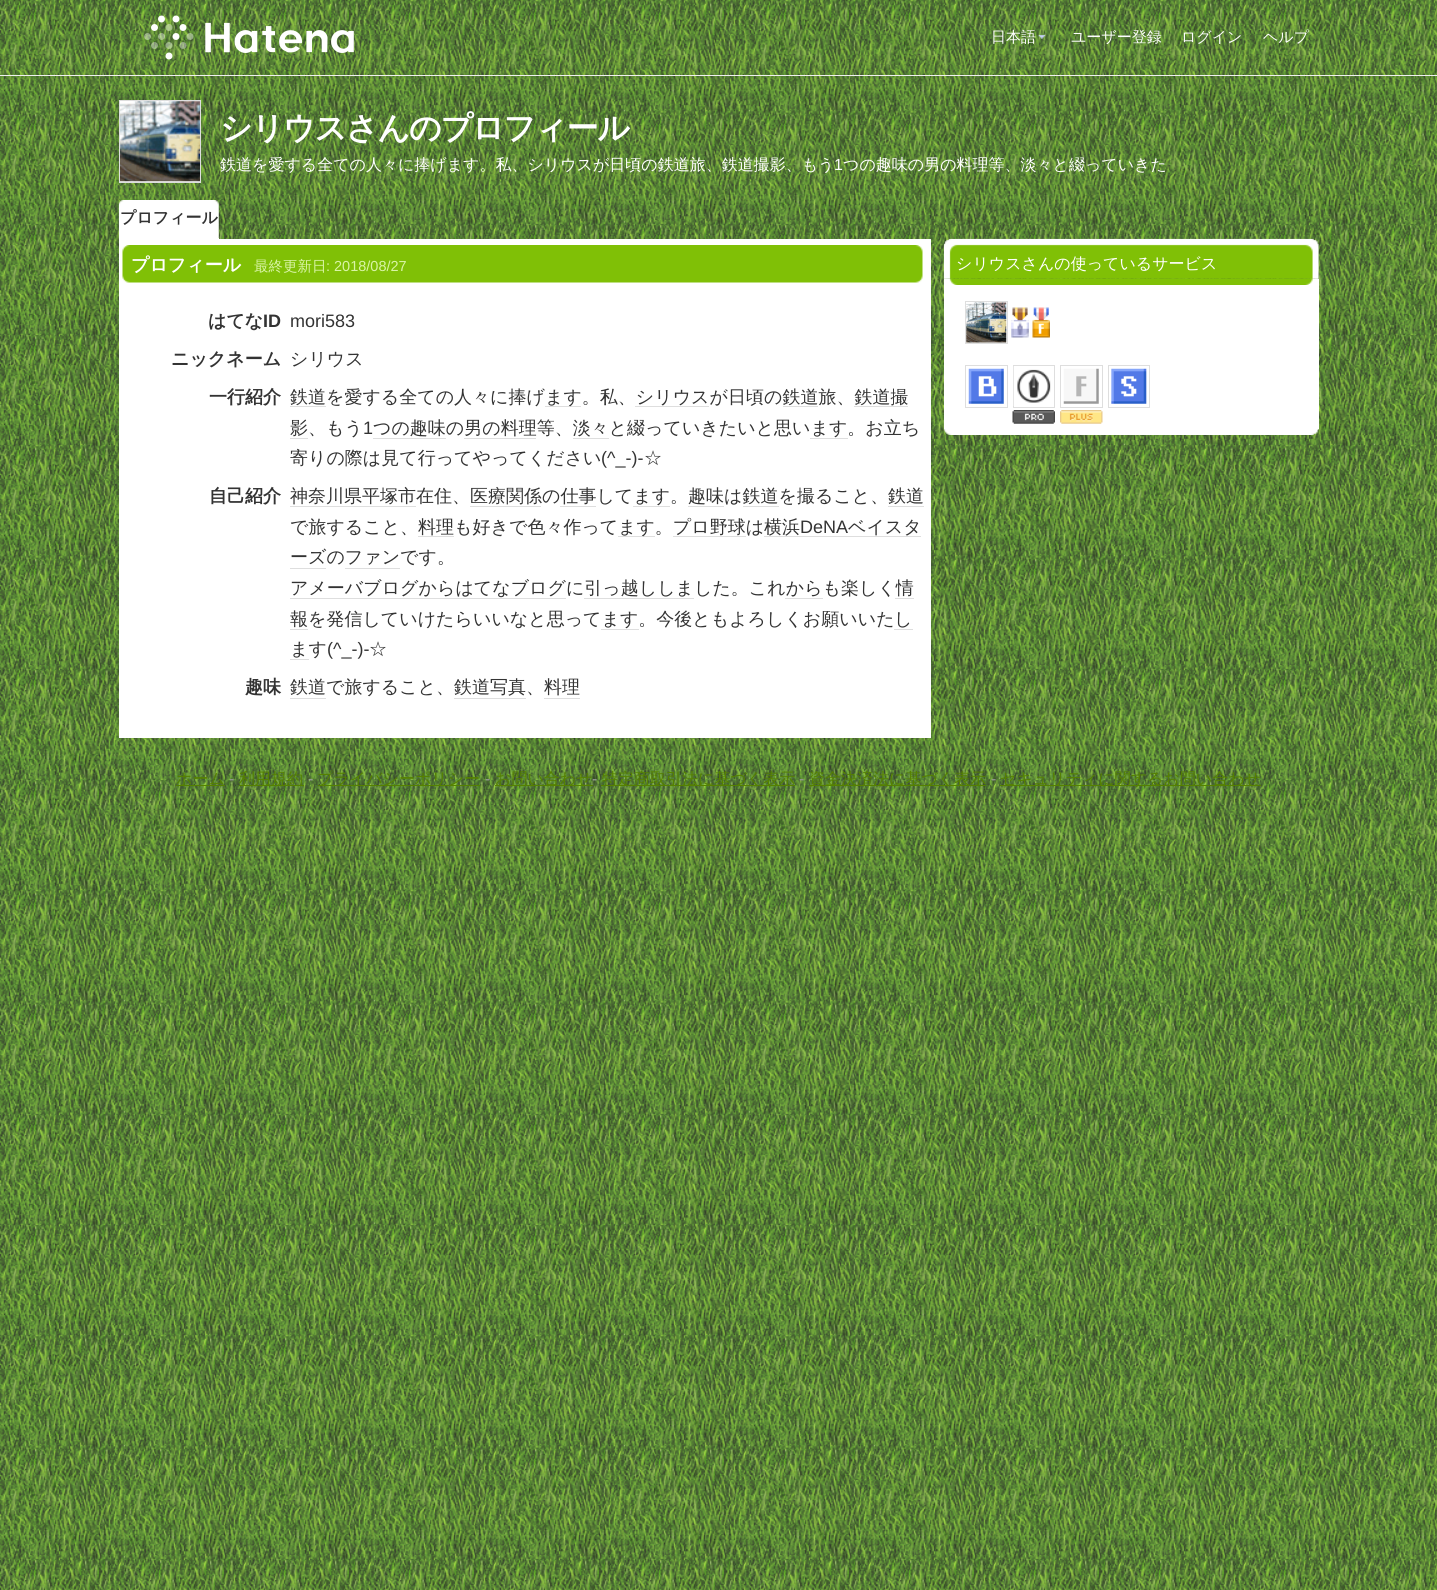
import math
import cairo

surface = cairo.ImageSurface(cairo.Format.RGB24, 1437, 1590)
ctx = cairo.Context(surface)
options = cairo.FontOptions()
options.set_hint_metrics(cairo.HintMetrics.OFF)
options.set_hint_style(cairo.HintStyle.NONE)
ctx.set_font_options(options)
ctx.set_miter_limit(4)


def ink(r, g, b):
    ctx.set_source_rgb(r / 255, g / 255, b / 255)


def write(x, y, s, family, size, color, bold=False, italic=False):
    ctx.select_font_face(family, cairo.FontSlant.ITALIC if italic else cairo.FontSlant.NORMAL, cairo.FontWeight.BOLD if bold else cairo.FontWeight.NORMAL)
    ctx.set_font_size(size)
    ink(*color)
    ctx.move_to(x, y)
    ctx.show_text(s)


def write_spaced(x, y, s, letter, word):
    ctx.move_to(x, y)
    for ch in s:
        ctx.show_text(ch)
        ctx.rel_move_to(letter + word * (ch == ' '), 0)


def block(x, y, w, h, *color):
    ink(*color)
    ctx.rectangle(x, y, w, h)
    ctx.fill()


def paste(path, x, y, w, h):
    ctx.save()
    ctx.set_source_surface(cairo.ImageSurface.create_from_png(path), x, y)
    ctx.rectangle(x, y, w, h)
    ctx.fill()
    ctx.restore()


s1 = dict(family="WenQuanYi Zen Hei Medium", size=15, color=(255, 255, 255))
s2 = dict(family="WenQuanYi Zen Hei Medium", size=16, color=(255, 255, 255))
s3 = dict(family="Liberation Sans", size=16, color=(255, 255, 255))
s4 = dict(family="WenQuanYi Zen Hei", size=16, color=(51, 51, 51), bold=True)
s5 = dict(family="WenQuanYi Zen Hei", size=18, color=(255, 255, 255), bold=True)
s6 = dict(family="WenQuanYi Zen Hei Medium", size=14.5, color=(217, 244, 166))
s7 = dict(family="Liberation Sans", size=14.5, color=(217, 244, 166))
s8 = dict(family="WenQuanYi Zen Hei", size=18, color=(51, 51, 51), bold=True)
s9 = dict(family="Liberation Sans", size=18, color=(51, 51, 51), bold=True)
s10 = dict(family="Liberation Sans", size=18, color=(51, 51, 51))
s11 = dict(family="WenQuanYi Zen Hei Medium", size=18, color=(51, 51, 51))
s12 = dict(family="WenQuanYi Zen Hei Medium", size=16, color=(85, 129, 0))
s13 = dict(family="Liberation Sans", size=16, color=(153, 153, 153))

ink(255, 255, 255)
ctx.paint()
paste("pic1.png", 0, 0, 1437, 1590)
block(0, 75, 1437, 1, 240, 240, 240)
paste("pic2.png", 144, 15, 210, 45)
paste("pic3.png", 1038, 34, 8, 5)
write(991, 42, "日本語", **s1)
write(1071, 42, "ユーザー登録", **s1)
write(1181, 42, "ログイン", **s1)
write(1263, 42, "ヘルプ", **s1)
ctx.rectangle(119.5, 100.5, 81, 82)
ctx.fill_preserve()
ink(222, 222, 222)
ctx.set_line_width(1)
ctx.stroke()
paste("pic4.png", 120, 101, 80, 81)
ctx.select_font_face("WenQuanYi Zen Hei", cairo.FontSlant.NORMAL, cairo.FontWeight.BOLD)
ctx.set_font_size(32)
ink(255, 255, 255)
write_spaced(220, 139, "シリウスさんのプロフィール", -1.25, 0)
write(220, 170, "鉄道を愛する全ての人々に捧げます。私、シリウスが日頃の鉄道旅、鉄道撮影、もう", **s2)
write(834, 170, "1", **s3)
write(843, 170, "つの趣味の男の料理等、淡々と綴っていきた", **s2)
paste("pic5.png", 118, 200, 101, 39)
block(119, 238, 100, 1, 255, 255, 255)
write(120, 223, "プロフィール", **s4)
block(119, 239, 812, 499, 255, 255, 255)
paste("pic6.png", 122, 245, 801, 38)
write(131, 271, "プロフィール", **s5)
write(254, 271, "最終更新日", **s6)
write(326, 271, ": 2018/08/27", **s7)
write(208, 327, "はてな", **s8)
write(263, 327, "ID", **s9)
write(290, 327, "mori583", **s10)
write(171, 365, "ニックネーム", **s8)
write(290, 365, "シリウス", **s11)
write(209, 403, "一行紹介", **s8)
block(290, 406, 36, 1, 222, 222, 222)
write(290, 403, "鉄道を愛する全ての人々に捧げ", **s11)
block(545, 406, 36, 1, 222, 222, 222)
write(545, 403, "ます。私、シリウスが日頃の鉄道旅、鉄道撮", **s11)
block(635, 406, 74, 1, 222, 222, 222)
block(783, 406, 35, 1, 222, 222, 222)
write(290, 434, "影、もう", **s11)
block(854, 406, 54, 1, 222, 222, 222)
block(290, 438, 18, 1, 222, 222, 222)
write(363, 434, "1", **s10)
write(373, 434, "つの趣味の男の料理等、淡々と綴っていきたいと思います。お立ち", **s11)
block(373, 438, 73, 1, 222, 222, 222)
block(464, 438, 72, 1, 222, 222, 222)
block(573, 438, 36, 1, 222, 222, 222)
block(810, 438, 38, 1, 222, 222, 222)
write(290, 464, "寄りの際は見て行ってやってください", **s11)
write(601, 464, "(^_-)-", **s10)
write(644, 464, "☆", **s11)
write(209, 502, "自己紹介", **s8)
write(290, 502, "神奈川県平塚市在住、医療関係の仕事してます。趣味は鉄道を撮ること、", **s11)
block(290, 506, 126, 1, 222, 222, 222)
write(888, 502, "鉄道", **s11)
block(888, 506, 36, 1, 222, 222, 222)
block(470, 506, 71, 1, 222, 222, 222)
block(560, 506, 36, 1, 222, 222, 222)
block(633, 506, 37, 1, 222, 222, 222)
block(688, 506, 36, 1, 222, 222, 222)
block(743, 506, 36, 1, 222, 222, 222)
write(290, 533, "で旅すること、料理も好きで色々作って", **s11)
block(618, 536, 37, 1, 222, 222, 222)
write(618, 533, "ます。プロ野球は横浜", **s11)
write(800, 533, "DeNA", **s10)
write(848, 533, "ベイスタ", **s11)
block(764, 536, 157, 1, 222, 222, 222)
block(418, 536, 36, 1, 222, 222, 222)
block(673, 536, 73, 1, 222, 222, 222)
write(290, 563, "ーズのファンです。", **s11)
block(290, 568, 36, 1, 222, 222, 222)
block(345, 568, 55, 1, 222, 222, 222)
write(290, 594, "アメーバブログからはてなブログに引っ越ししました。これからも楽しく情", **s11)
block(290, 598, 276, 1, 222, 222, 222)
block(584, 598, 110, 1, 222, 222, 222)
block(785, 598, 38, 1, 222, 222, 222)
write(290, 625, "報を発信していけたらいいなと思ってます。今後ともよろしくお願いいた", **s11)
block(895, 598, 19, 1, 222, 222, 222)
block(290, 629, 18, 1, 222, 222, 222)
write(894, 625, "し", **s11)
block(894, 629, 19, 1, 222, 222, 222)
block(601, 629, 38, 1, 222, 222, 222)
write(290, 655, "ます", **s11)
block(290, 659, 19, 1, 222, 222, 222)
write(327, 655, "(^_-)-", **s10)
write(369, 655, "☆", **s11)
write(245, 693, "趣味", **s8)
write(290, 693, "鉄道で旅すること、鉄道写真、料理", **s11)
block(290, 698, 36, 1, 222, 222, 222)
block(454, 698, 72, 1, 222, 222, 222)
block(544, 698, 36, 1, 222, 222, 222)
paste("pic7.png", 943, 420, 376, 15)
paste("pic8.png", 943, 238, 376, 41)
write(956, 269, "シリウスさんの使っているサービス", **s2)
block(944, 279, 375, 150, 255, 255, 255)
paste("pic9.png", 943, 278, 376, 7)
ctx.rectangle(965.5, 301.5, 42, 42)
ink(222, 222, 222)
ctx.stroke()
paste("pic10.png", 966, 302, 41, 41)
paste("pic11.png", 1011, 307, 18, 31)
paste("pic12.png", 1032, 307, 18, 31)
ctx.rectangle(965.5, 365.5, 42, 42)
ctx.stroke()
paste("pic13.png", 968, 368, 36, 36)
ctx.rectangle(1013.5, 365.5, 41, 42)
ctx.stroke()
paste("pic14.png", 1013, 366, 38, 40)
paste("pic15.png", 1012, 410, 43, 14)
ctx.rectangle(1060.5, 365.5, 42, 42)
ctx.stroke()
paste("pic16.png", 1063, 368, 36, 36)
paste("pic17.png", 1060, 410, 43, 14)
ctx.rectangle(1108.5, 365.5, 41, 42)
ctx.stroke()
paste("pic18.png", 1111, 368, 36, 36)
block(176, 785, 49, 1, 85, 129, 0)
write(176, 784, "ホーム", **s12)
write(229, 784, "-", **s13)
block(239, 785, 65, 1, 85, 129, 0)
write(239, 784, "利用規約", **s12)
write(308, 784, "-", **s13)
block(318, 785, 162, 1, 85, 129, 0)
write(317, 784, "プライバシーポリシー", **s12)
write(485, 784, "-", **s13)
block(495, 785, 98, 1, 85, 129, 0)
write(495, 784, "お問い合わせ", **s12)
write(592, 784, "-", **s13)
block(601, 785, 194, 1, 85, 129, 0)
write(602, 784, "特定商取引法に基づく表示", **s12)
write(799, 784, "-", **s13)
block(809, 785, 177, 1, 85, 129, 0)
write(809, 784, "資金決済法に基づく表示", **s12)
write(991, 784, "-", **s13)
block(1000, 785, 261, 1, 85, 129, 0)
write(1000, 784, "セキュリティに関するお問い合わせ", **s12)
surface.write_to_png("screenshot.png")
